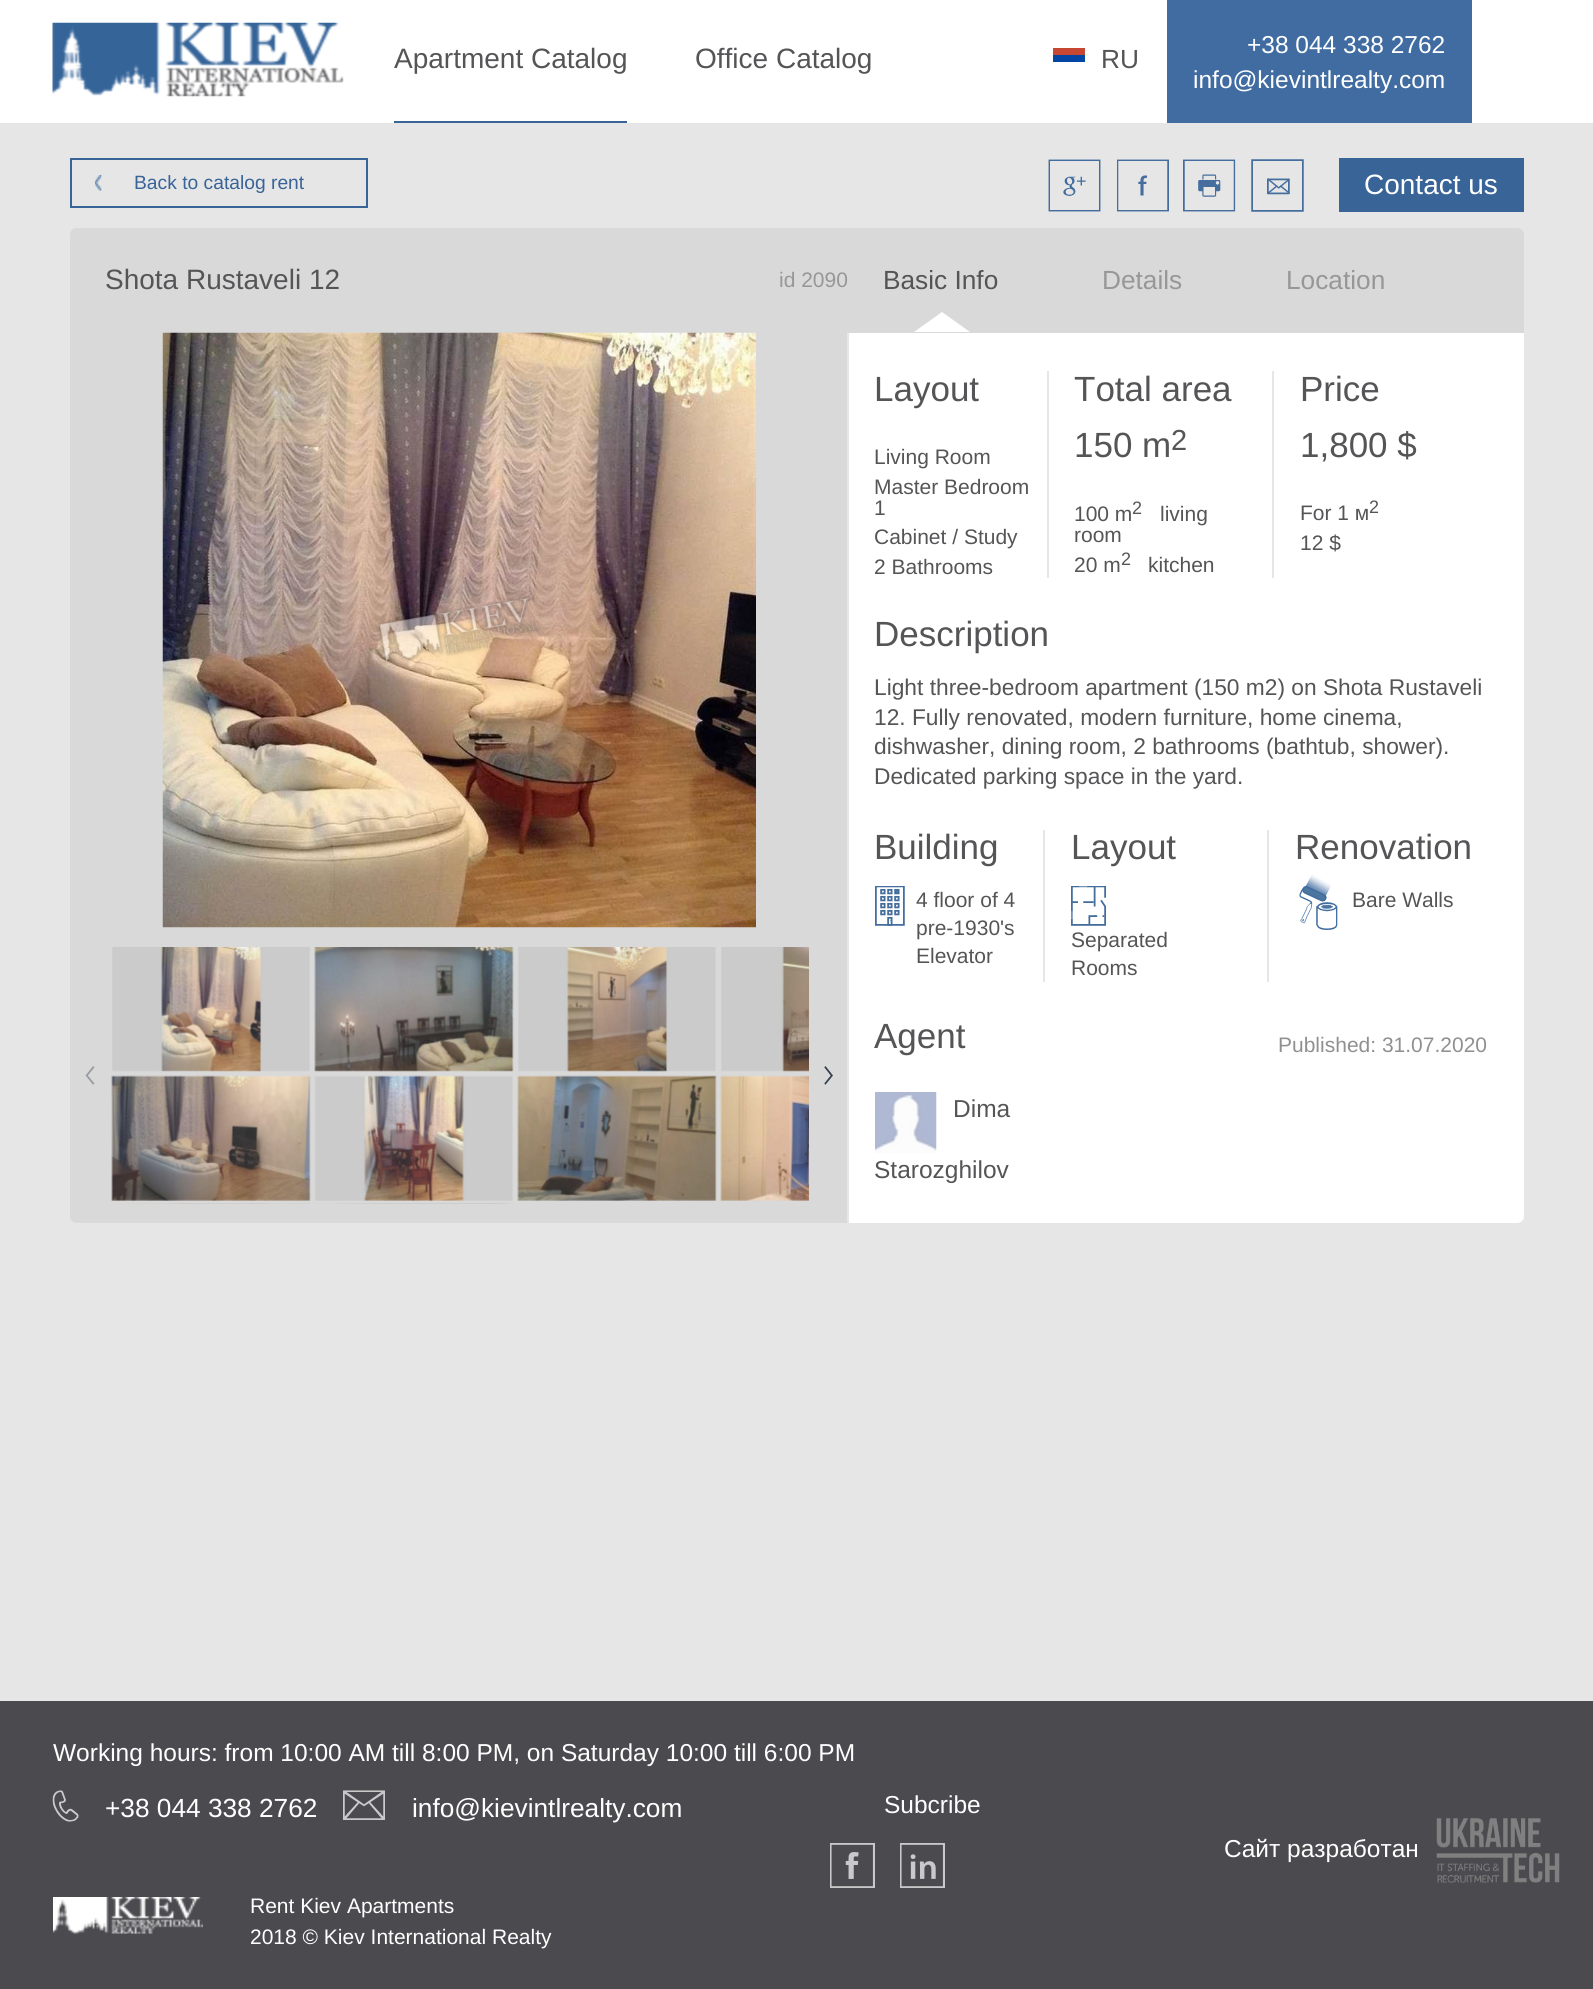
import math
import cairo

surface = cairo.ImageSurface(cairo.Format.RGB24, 1593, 1989)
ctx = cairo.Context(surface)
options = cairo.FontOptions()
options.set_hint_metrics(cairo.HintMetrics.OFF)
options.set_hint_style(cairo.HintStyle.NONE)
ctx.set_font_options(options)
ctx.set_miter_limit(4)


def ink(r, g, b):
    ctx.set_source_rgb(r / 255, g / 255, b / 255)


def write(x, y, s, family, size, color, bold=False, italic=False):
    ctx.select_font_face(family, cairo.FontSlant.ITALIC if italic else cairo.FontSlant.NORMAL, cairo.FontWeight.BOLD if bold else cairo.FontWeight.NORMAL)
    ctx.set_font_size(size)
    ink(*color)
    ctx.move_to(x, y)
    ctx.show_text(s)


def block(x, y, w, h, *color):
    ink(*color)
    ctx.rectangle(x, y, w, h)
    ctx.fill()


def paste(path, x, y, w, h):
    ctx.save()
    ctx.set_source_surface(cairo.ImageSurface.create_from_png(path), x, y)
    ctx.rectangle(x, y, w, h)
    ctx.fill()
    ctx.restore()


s1 = dict(family="Liberation Sans", size=28, color=(85, 85, 87))
s2 = dict(family="Liberation Sans", size=26.25, color=(85, 85, 87))
s3 = dict(family="Liberation Sans", size=24.5, color=(255, 255, 255))
s4 = dict(family="Liberation Sans", size=19.25, color=(56, 100, 152))
s5 = dict(family="Liberation Sans", size=28, color=(255, 255, 255))
s6 = dict(family="Liberation Sans", size=21, color=(151, 151, 152))
s7 = dict(family="Liberation Sans", size=26.25, color=(151, 151, 152))
s8 = dict(family="Liberation Sans", size=35, color=(85, 85, 87))
s9 = dict(family="Liberation Sans", size=21, color=(85, 85, 87))
s10 = dict(family="Liberation Sans", size=29, color=(85, 85, 87))
s11 = dict(family="Liberation Sans", size=18, color=(85, 85, 87))
s12 = dict(family="Liberation Sans", size=22.75, color=(85, 85, 87))
s13 = dict(family="Liberation Sans", size=24.5, color=(85, 85, 87))
s14 = dict(family="Liberation Sans", size=21, color=(144, 144, 146))
s15 = dict(family="Liberation Sans", size=26.25, color=(255, 255, 255))
s16 = dict(family="Liberation Sans", size=21, color=(255, 255, 255))

ink(230, 230, 230)
ctx.paint()
block(0, 0, 1593, 123, 255, 255, 255)
paste("pic1.png", 52, 22, 292, 75)
block(394, 121, 233, 2, 56, 100, 152)
write(394, 68, "Apartment Catalog", **s1)
write(695, 68, "Office Catalog", **s1)
block(1053, 55, 32, 7, 0, 69, 164)
block(1053, 48, 32, 7, 199, 71, 50)
write(1101, 68, "RU", **s2)
block(1167, 0, 305, 123, 64, 108, 161)
write(1247, 53, "+38 044 338 2762", **s3)
write(1193, 88, "info@kievintlrealty.com", **s3)
ctx.rectangle(71, 159, 296, 48)
ink(56, 100, 152)
ctx.stroke()
paste("pic2.png", 95, 175, 7, 16)
write(134, 189, "Back to catalog rent", **s4)
paste("pic3.png", 1048, 159, 53, 53)
paste("pic4.png", 1117, 159, 52, 53)
paste("pic5.png", 1183, 159, 53, 53)
paste("pic6.png", 1251, 159, 53, 53)
block(1339, 158, 185, 54, 56, 100, 152)
write(1364, 194, "Contact us", **s5)
ink(217, 217, 217)
ctx.new_path()
ctx.move_to(77, 228)
ctx.line_to(1517, 228)
ctx.curve_to(1521, 228, 1524, 231, 1524, 235)
ctx.line_to(1524, 333)
ctx.line_to(70, 333)
ctx.line_to(70, 235)
ctx.curve_to(70, 231, 73, 228, 77, 228)
ctx.close_path()
ctx.fill()
write(105, 289, "Shota Rustaveli 12", **s1)
write(779, 287, "id 2090", **s6)
write(883, 289, "Basic Info", **s2)
ink(255, 255, 255)
ctx.new_path()
ctx.move_to(970, 332)
ctx.line_to(914, 332)
ctx.line_to(942, 312)
ctx.close_path()
ctx.fill()
write(1102, 289, "Details", **s7)
write(1286, 289, "Location", **s7)
ink(217, 217, 217)
ctx.new_path()
ctx.move_to(70, 333)
ctx.line_to(847, 333)
ctx.line_to(847, 1223)
ctx.line_to(77, 1223)
ctx.curve_to(73, 1223, 70, 1220, 70, 1216)
ctx.close_path()
ctx.fill()
paste("pic7.png", 162, 332, 594, 596)
paste("pic8.png", 85, 1066, 10, 19)
paste("pic9.png", 112, 947, 198, 125)
paste("pic10.png", 111, 1075, 200, 126)
paste("pic11.png", 314, 947, 200, 125)
paste("pic12.png", 314, 1075, 199, 126)
paste("pic13.png", 518, 947, 198, 125)
paste("pic14.png", 517, 1075, 200, 126)
paste("pic15.png", 721, 947, 88, 125)
paste("pic16.png", 720, 1075, 89, 126)
paste("pic17.png", 112, 1203, 198, 1)
paste("pic18.png", 316, 1203, 197, 1)
paste("pic19.png", 824, 1066, 9, 19)
ink(255, 255, 255)
ctx.new_path()
ctx.move_to(849, 333)
ctx.line_to(1524, 333)
ctx.line_to(1524, 1216)
ctx.curve_to(1524, 1220, 1521, 1223, 1517, 1223)
ctx.line_to(849, 1223)
ctx.close_path()
ctx.fill()
write(874, 401, "Layout", **s8)
write(874, 464, "Living Room", **s9)
write(874, 494, "Master Bedroom", **s9)
write(874, 515, "1", **s9)
write(874, 544, "Cabinet / Study", **s9)
write(874, 574, "2 Bathrooms", **s9)
block(1272, 371, 2, 207, 230, 230, 230)
block(1047, 371, 2, 207, 230, 230, 230)
write(1074, 401, "Total area", **s8)
write(1074, 457, "150 m", **s8)
write(1171, 450, "2", **s10)
write(1074, 521, "100 m", **s9)
write(1132, 514, "2", **s11)
write(1160, 521, "living", **s9)
write(1074, 542, "room", **s9)
write(1074, 572, "20 m", **s9)
write(1121, 565, "2", **s11)
write(1148, 572, "kitchen", **s9)
write(1300, 401, "Price", **s8)
write(1300, 457, "1,800 $", **s8)
write(1300, 520, "For 1 м", **s9)
write(1369, 513, "2", **s11)
write(1300, 550, "12 $", **s9)
write(874, 646, "Description", **s8)
write(874, 695, "Light three-bedroom apartment (150 m2) on Shota Rustaveli", **s12)
write(874, 725, "12. Fully renovated, modern furniture, home cinema,", **s12)
write(874, 754, "dishwasher, dining room, 2 bathrooms (bathtub, shower).", **s12)
write(874, 784, "Dedicated parking space in the yard.", **s12)
write(874, 859, "Building", **s8)
paste("pic20.png", 875, 886, 30, 40)
write(916, 907, "4 floor of 4", **s9)
write(916, 935, "pre-1930's", **s9)
write(916, 963, "Elevator", **s9)
block(1267, 830, 2, 152, 230, 230, 230)
block(1043, 830, 2, 152, 230, 230, 230)
write(1071, 859, "Layout", **s8)
paste("pic21.png", 1071, 886, 36, 40)
write(1071, 947, "Separated", **s9)
write(1071, 975, "Rooms", **s9)
write(1295, 859, "Renovation", **s8)
paste("pic22.png", 1299, 874, 39, 56)
write(1352, 907, "Bare Walls", **s9)
write(874, 1048, "Agent", **s8)
paste("pic23.png", 875, 1092, 62, 61)
write(953, 1117, "Dima", **s13)
write(874, 1178, "Starozghilov", **s13)
write(1278, 1052, "Published: 31.07.2020", **s14)
block(0, 1701, 1593, 288, 75, 74, 78)
write(53, 1761, "Working hours: from 10:00 AM till 8:00 PM, on Saturday 10:00 till 6:00 PM", **s3)
paste("pic24.png", 52, 1790, 27, 32)
write(105, 1817, "+38 044 338 2762", **s15)
paste("pic25.png", 343, 1790, 42, 30)
write(412, 1817, "info@kievintlrealty.com", **s15)
write(884, 1813, "Subcribe", **s3)
paste("pic26.png", 830, 1843, 45, 45)
paste("pic27.png", 900, 1843, 45, 45)
write(1224, 1857, "Сайт разработан", **s3)
paste("pic28.png", 1436, 1818, 124, 65)
paste("pic29.png", 53, 1897, 150, 37)
write(250, 1913, "Rent Kiev Apartments", **s16)
write(250, 1944, "2018 © Kiev International Realty", **s16)
surface.write_to_png("screenshot.png")
